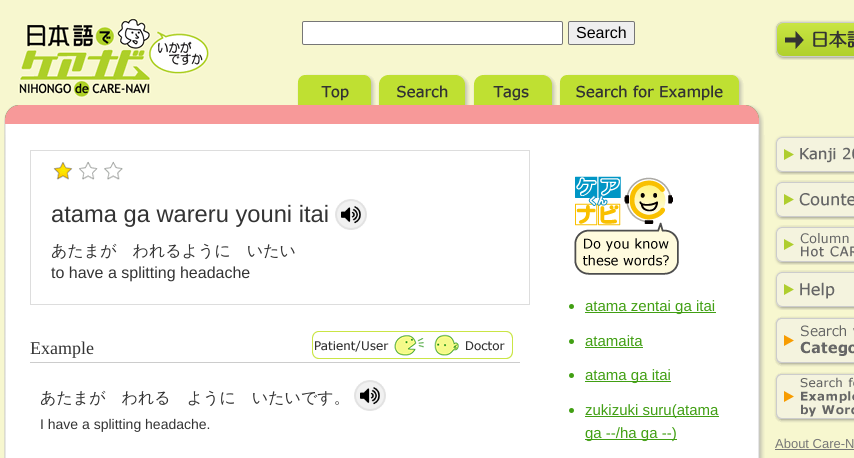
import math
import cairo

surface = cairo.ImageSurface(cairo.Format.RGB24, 854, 458)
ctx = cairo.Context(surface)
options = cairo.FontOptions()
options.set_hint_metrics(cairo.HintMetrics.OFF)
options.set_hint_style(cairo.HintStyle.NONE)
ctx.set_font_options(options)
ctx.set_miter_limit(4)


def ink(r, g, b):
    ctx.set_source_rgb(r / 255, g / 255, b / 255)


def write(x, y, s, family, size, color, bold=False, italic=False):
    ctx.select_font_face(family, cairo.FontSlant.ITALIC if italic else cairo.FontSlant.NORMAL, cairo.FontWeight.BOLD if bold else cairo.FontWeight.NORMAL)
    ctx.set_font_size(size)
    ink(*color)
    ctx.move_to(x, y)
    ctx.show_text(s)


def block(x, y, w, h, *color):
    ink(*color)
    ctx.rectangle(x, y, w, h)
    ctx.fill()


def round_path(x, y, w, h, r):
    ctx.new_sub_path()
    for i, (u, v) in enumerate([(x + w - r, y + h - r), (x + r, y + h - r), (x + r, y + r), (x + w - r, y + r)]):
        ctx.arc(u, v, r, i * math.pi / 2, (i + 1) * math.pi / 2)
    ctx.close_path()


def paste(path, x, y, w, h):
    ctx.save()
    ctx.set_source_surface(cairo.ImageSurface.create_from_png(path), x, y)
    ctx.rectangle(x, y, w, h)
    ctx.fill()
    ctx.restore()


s1 = dict(family="Liberation Sans", size=16, color=(0, 0, 0))
s2 = dict(family="Liberation Sans", size=23.7, color=(51, 51, 51))
s3 = dict(family="WenQuanYi Zen Hei Medium", size=16, color=(51, 51, 51))
s4 = dict(family="Liberation Sans", size=16, color=(51, 51, 51))
s5 = dict(family="Liberation Serif", size=18, color=(51, 51, 51))
s6 = dict(family="Liberation Sans", size=14, color=(51, 51, 51))
s7 = dict(family="Liberation Sans", size=15, color=(65, 159, 19))
s8 = dict(family="Liberation Sans", size=13, color=(119, 119, 119))

ink(247, 247, 207)
ctx.paint()
paste("pic1.png", 18, 18, 192, 80)
ink(255, 255, 255)
round_path(302.5, 21.5, 260, 23, 1.5)
ctx.fill_preserve()
ink(118, 118, 118)
ctx.set_line_width(1)
ctx.stroke()
ink(239, 239, 239)
round_path(568.5, 21.5, 66, 23, 1.5)
ctx.fill_preserve()
ink(118, 118, 118)
ctx.stroke()
write(576, 38, "Search", **s1)
paste("pic2.png", 774, 20, 80, 40)
paste("pic3.png", 4, 105, 760, 30)
paste("pic4.png", 297, 74, 79, 31)
paste("pic5.png", 378, 74, 92, 31)
paste("pic6.png", 473, 74, 84, 31)
paste("pic7.png", 559, 74, 185, 31)
paste("pic8.png", 4, 135, 761, 323)
ctx.rectangle(30.5, 150.5, 499, 154)
ink(221, 221, 221)
ctx.stroke()
paste("pic9.png", 53, 161, 70, 19)
write(51, 222, "atama ga wareru youni itai", **s2)
paste("pic10.png", 335, 199, 32, 31)
write(51, 256, "あたまが　われるように　いたい", **s3)
write(51, 278, "to have a splitting headache", **s4)
block(30, 362, 490, 1, 204, 204, 204)
write(30, 354, "Example", **s5)
paste("pic11.png", 312, 331, 201, 28)
write(40, 403, "あたまが　われる　ように　いたいです。", **s3)
paste("pic10.png", 354, 380, 32, 31)
write(40, 429, "I have a splitting headache.", **s6)
paste("pic12.png", 574, 176, 105, 99)
ink(65, 159, 19)
ctx.arc(571.5, 306.5, 2.5, 0, 2 * math.pi)
ctx.fill()
block(585, 312, 131, 1, 65, 159, 19)
write(585, 311, "atama zentai ga itai", **s7)
ctx.new_path()
ctx.arc(571.5, 341.5, 2.5, 0, 2 * math.pi)
ctx.fill()
write(585, 346, "atamaita", **s7)
block(585, 347, 58, 1, 65, 159, 19)
ctx.new_path()
ctx.arc(571.5, 375.5, 2.5, 0, 2 * math.pi)
ctx.fill()
block(585, 381, 86, 1, 65, 159, 19)
write(585, 380, "atama ga itai", **s7)
ctx.new_path()
ctx.arc(571.5, 410.5, 2.5, 0, 2 * math.pi)
ctx.fill()
block(585, 416, 134, 1, 65, 159, 19)
write(585, 415, "zukizuki suru(atama", **s7)
block(585, 439, 92, 1, 65, 159, 19)
write(585, 438, "ga --/ha ga --)", **s7)
paste("pic13.png", 774, 135, 80, 40)
paste("pic14.png", 774, 180, 80, 40)
paste("pic15.png", 774, 225, 80, 40)
paste("pic16.png", 774, 270, 80, 40)
paste("pic17.png", 774, 316, 80, 51)
paste("pic18.png", 774, 372, 80, 51)
write(775, 448, "About Care-N", **s8)
block(775, 449, 79, 1, 119, 119, 119)
surface.write_to_png("screenshot.png")
